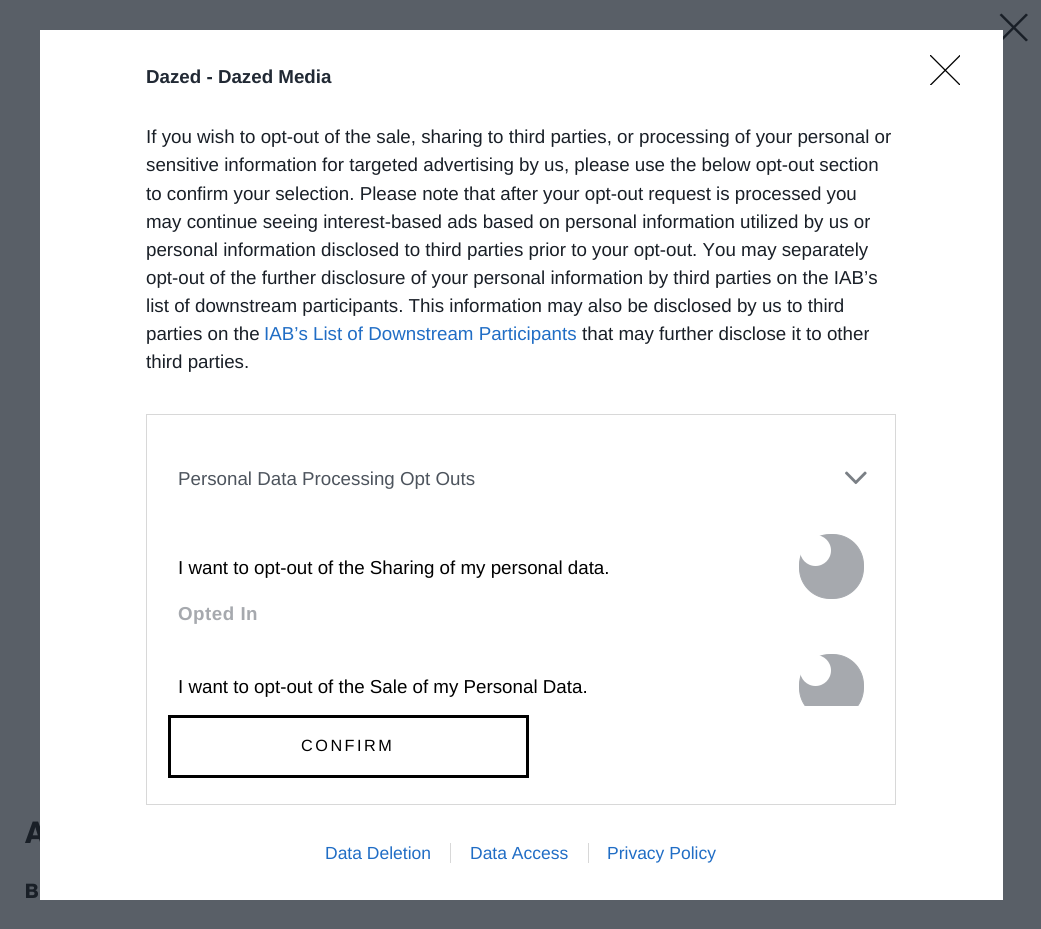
import math
import cairo

surface = cairo.ImageSurface(cairo.Format.RGB24, 1041, 929)
ctx = cairo.Context(surface)
options = cairo.FontOptions()
options.set_hint_metrics(cairo.HintMetrics.OFF)
options.set_hint_style(cairo.HintStyle.NONE)
ctx.set_font_options(options)
ctx.set_miter_limit(4)


def ink(r, g, b):
    ctx.set_source_rgb(r / 255, g / 255, b / 255)


def write(x, y, s, family, size, color, bold=False, italic=False):
    ctx.select_font_face(family, cairo.FontSlant.ITALIC if italic else cairo.FontSlant.NORMAL, cairo.FontWeight.BOLD if bold else cairo.FontWeight.NORMAL)
    ctx.set_font_size(size)
    ink(*color)
    ctx.move_to(x, y)
    ctx.show_text(s)


def write_spaced(x, y, s, letter, word):
    ctx.move_to(x, y)
    for ch in s:
        ctx.show_text(ch)
        ctx.rel_move_to(letter + word * (ch == ' '), 0)


def block(x, y, w, h, *color):
    ink(*color)
    ctx.rectangle(x, y, w, h)
    ctx.fill()


def round_path(x, y, w, h, r):
    ctx.new_sub_path()
    for i, (u, v) in enumerate([(x + w - r, y + h - r), (x + r, y + h - r), (x + r, y + r), (x + w - r, y + r)]):
        ctx.arc(u, v, r, i * math.pi / 2, (i + 1) * math.pi / 2)
    ctx.close_path()


def paste(path, x, y, w, h):
    ctx.save()
    ctx.set_source_surface(cairo.ImageSurface.create_from_png(path), x, y)
    ctx.rectangle(x, y, w, h)
    ctx.fill()
    ctx.restore()


s1 = dict(family="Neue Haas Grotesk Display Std", size=30, color=(25, 31, 39), bold=True)
s2 = dict(family="Neue Haas Grotesk Display Std", size=20, color=(25, 31, 39), bold=True)
s3 = dict(family="Liberation Sans", size=18.75, color=(33, 41, 52), bold=True)
s4 = dict(family="Liberation Sans", size=18.75, color=(25, 31, 39))
s5 = dict(family="Liberation Sans", size=18.75, color=(32, 109, 197))
s6 = dict(family="Liberation Sans", size=18.75, color=(77, 84, 93))
s7 = dict(family="Liberation Sans", size=18.75, color=(0, 0, 0))
s8 = dict(family="Liberation Sans", size=17.5, color=(32, 109, 197))

ink(89, 95, 103)
ctx.paint()
ink(25, 31, 39)
ctx.set_fill_rule(cairo.FillRule.EVEN_ODD)
ctx.new_path()
ctx.move_to(1026, 13.5)
ctx.line_to(1028, 15)
ctx.line_to(1001.5, 41.5)
ctx.line_to(999.5, 40)
ctx.close_path()
ctx.fill()
ctx.new_path()
ctx.move_to(1028, 40)
ctx.line_to(1026, 41.5)
ctx.line_to(999.5, 15)
ctx.line_to(1001.5, 13.5)
ctx.close_path()
ctx.fill()
write(25, 843, "A", **s1)
write(25, 898, "B", **s2)
block(40, 30, 963, 870, 255, 255, 255)
write(146, 83, "Dazed - Dazed Media", **s3)
write(146, 143, "If you wish to opt-out of the sale, sharing to third parties, or processing of your personal or", **s4)
write(146, 171, "sensitive information for targeted advertising by us, please use the below opt-out section", **s4)
write(146, 200, "to confirm your selection. Please note that after your opt-out request is processed you", **s4)
write(146, 228, "may continue seeing interest-based ads based on personal information utilized by us or", **s4)
write(146, 256, "personal information disclosed to third parties prior to your opt-out. You may separately", **s4)
write(146, 284, "opt-out of the further disclosure of your personal information by third parties on the IAB’s", **s4)
write(146, 312, "list of downstream participants. This information may also be disclosed by us to third", **s4)
write(146, 340, "parties on the", **s4)
write(264, 340, "IAB’s List of Downstream Participants", **s5)
write(582, 340, "that may further disclose it to other", **s4)
write(146, 368, "third parties.", **s4)
ctx.rectangle(146.5, 414.5, 749, 390)
ink(216, 216, 216)
ctx.set_line_width(1)
ctx.stroke()
write(178, 485, "Personal Data Processing Opt Outs", **s6)
paste("pic1.png", 845, 471, 22, 14)
write(178, 574, "I want to opt-out of the Sharing of my personal data.", **s7)
ink(166, 169, 174)
round_path(799.5, 534.5, 64, 64, 30.5)
ctx.fill_preserve()
ctx.stroke()
ink(255, 255, 255)
ctx.arc(815.5, 550.5, 15.5, 0, 2 * math.pi)
ctx.fill()
ctx.select_font_face("Liberation Sans", cairo.FontSlant.NORMAL, cairo.FontWeight.BOLD)
ink(166, 169, 174)
write_spaced(178, 620, "Opted In", 0.5, 0)
write(178, 693, "I want to opt-out of the Sale of my Personal Data.", **s7)
ctx.save()
ctx.set_fill_rule(cairo.FillRule.WINDING)
ctx.rectangle(160, 428, 723, 278)
ctx.clip()
ink(166, 169, 174)
round_path(799.5, 654.5, 64, 64, 30.5)
ctx.fill_preserve()
ctx.stroke()
ctx.restore()
ink(255, 255, 255)
ctx.arc(815.5, 670.5, 15.5, 0, 2 * math.pi)
ctx.fill()
ctx.rectangle(169.5, 716.5, 358, 60)
ink(0, 0, 0)
ctx.set_line_width(3)
ctx.stroke()
ctx.set_font_size(16.25)
write_spaced(301, 751, "CONFIRM", 2.5, 0)
ctx.save()
ctx.set_fill_rule(cairo.FillRule.WINDING)
ctx.rectangle(930, 55, 30, 30)
ctx.clip()
ctx.new_path()
ctx.move_to(930.5, 55.5)
ctx.line_to(960, 85)
ctx.move_to(960, 55.5)
ctx.line_to(930.5, 85)
ctx.set_line_width(1.3)
ctx.set_line_cap(cairo.LineCap.ROUND)
ctx.set_line_join(cairo.LineJoin.ROUND)
ctx.stroke()
ctx.restore()
write(325, 859, "Data Deletion", **s8)
write(470, 859, "Data Access", **s8)
block(450, 843, 1, 20, 216, 216, 216)
write(607, 859, "Privacy Policy", **s8)
block(588, 843, 1, 20, 216, 216, 216)
surface.write_to_png("screenshot.png")
